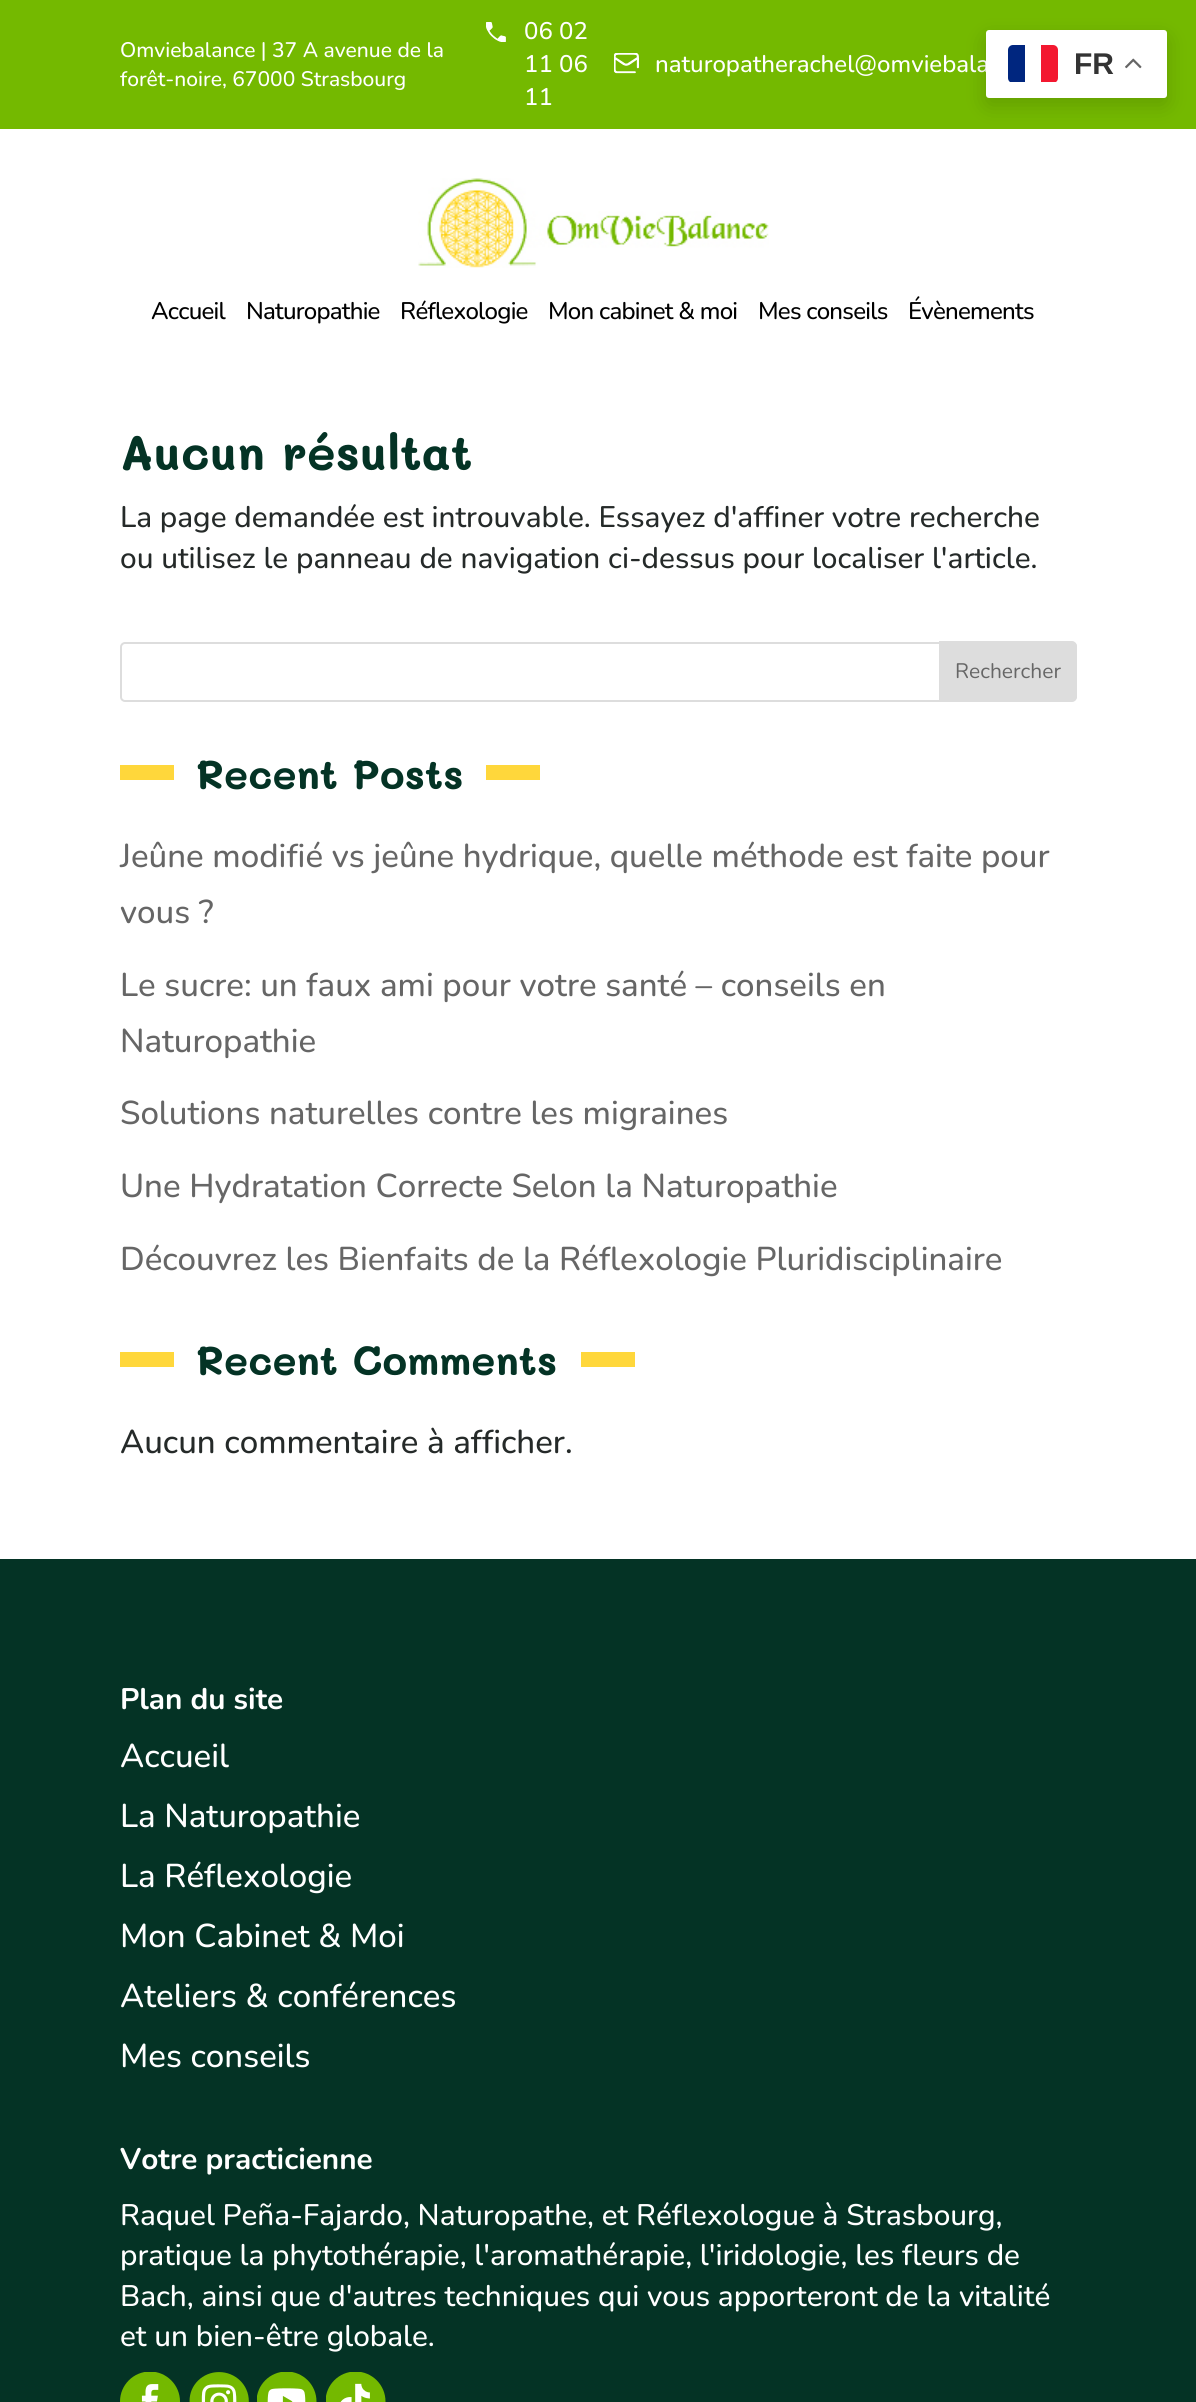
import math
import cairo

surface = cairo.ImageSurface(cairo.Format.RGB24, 1196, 2402)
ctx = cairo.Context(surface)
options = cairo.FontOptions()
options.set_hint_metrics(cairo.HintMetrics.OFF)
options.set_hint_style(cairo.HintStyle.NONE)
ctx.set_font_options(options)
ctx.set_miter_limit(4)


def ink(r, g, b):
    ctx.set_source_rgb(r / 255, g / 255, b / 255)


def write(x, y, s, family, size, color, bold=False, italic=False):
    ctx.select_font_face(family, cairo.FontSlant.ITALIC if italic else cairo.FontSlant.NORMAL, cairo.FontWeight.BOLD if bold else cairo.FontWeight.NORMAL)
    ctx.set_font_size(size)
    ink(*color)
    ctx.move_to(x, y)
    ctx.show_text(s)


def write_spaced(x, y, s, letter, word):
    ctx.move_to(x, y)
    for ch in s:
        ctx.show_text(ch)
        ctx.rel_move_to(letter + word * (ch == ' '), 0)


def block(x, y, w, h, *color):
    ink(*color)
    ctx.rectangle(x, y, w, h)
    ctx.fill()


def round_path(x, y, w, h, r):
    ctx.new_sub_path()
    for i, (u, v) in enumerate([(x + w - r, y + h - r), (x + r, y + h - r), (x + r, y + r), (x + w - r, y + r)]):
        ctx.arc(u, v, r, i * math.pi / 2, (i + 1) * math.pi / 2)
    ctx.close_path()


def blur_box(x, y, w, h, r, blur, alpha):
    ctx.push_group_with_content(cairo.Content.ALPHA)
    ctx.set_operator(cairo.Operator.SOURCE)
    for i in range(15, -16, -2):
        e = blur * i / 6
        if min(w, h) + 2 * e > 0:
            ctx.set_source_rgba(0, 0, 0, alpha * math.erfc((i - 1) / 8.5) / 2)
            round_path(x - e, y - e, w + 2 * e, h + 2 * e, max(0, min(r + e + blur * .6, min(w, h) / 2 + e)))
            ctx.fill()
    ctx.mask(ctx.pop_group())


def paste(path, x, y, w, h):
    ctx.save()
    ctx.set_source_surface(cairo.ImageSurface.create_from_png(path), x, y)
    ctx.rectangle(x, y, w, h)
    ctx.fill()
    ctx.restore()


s1 = dict(family="Nunito Medium", size=21, color=(255, 255, 255))
s2 = dict(family="Nunito Medium", size=24, color=(255, 255, 255))
s3 = dict(family="Mali", size=48, color=(4, 51, 37), bold=True)
s4 = dict(family="Nunito Medium", size=29.7, color=(37, 42, 41))
s5 = dict(family="Nunito", size=21, color=(102, 102, 102))
s6 = dict(family="Mali", size=40.5, color=(4, 51, 37), bold=True)
s7 = dict(family="Nunito Medium", size=33, color=(102, 102, 102))
s8 = dict(family="Nunito Medium", size=33, color=(37, 42, 41))
s9 = dict(family="Nunito", size=29.7, color=(255, 255, 255), bold=True)
s10 = dict(family="Nunito Medium", size=33, color=(255, 255, 255))
s11 = dict(family="Nunito Medium", size=29.7, color=(255, 255, 255))
s12 = dict(family="Liberation Sans", size=30, color=(51, 51, 51), bold=True)

ink(255, 255, 255)
ctx.paint()
block(0, 0, 1196, 129, 116, 185, 0)
write(120, 57, "Omviebalance | 37 A avenue de la", **s1)
write(120, 86, "forêt-noire, 67000 Strasbourg", **s1)
paste("pic1.png", 486, 22, 20, 20)
write(524, 39, "06 02", **s2)
write(524, 72, "11 06", **s2)
write(524, 105, "11", **s2)
paste("pic2.png", 614, 53, 25, 21)
write(655, 72, "naturopatherachel@omviebala", **s2)
paste("pic3.png", 418, 178, 351, 90)
ink(0, 0, 0)
write_spaced(151, 319, "Accueil", -0.75, 0)
write_spaced(246, 319, "Naturopathie", -0.75, 0)
write_spaced(400, 319, "Réflexologie", -0.75, 0)
write_spaced(548, 319, "Mon cabinet & moi", -0.75, 0)
write_spaced(758, 319, "Mes conseils", -0.75, 0)
write_spaced(908, 319, "Évènements", -0.75, 0)
write(120, 470, "Aucun résultat", **s3)
write(120, 527, "La page demandée est introuvable. Essayez d'affiner votre recherche", **s4)
write(120, 568, "ou utilisez le panneau de navigation ci-dessus pour localiser l'article.", **s4)
round_path(121, 643, 955, 58, 4)
ink(221, 221, 221)
ctx.stroke()
ctx.new_path()
ctx.move_to(940, 642)
ctx.line_to(1072, 642)
ctx.curve_to(1074, 642, 1076, 644, 1076, 646)
ctx.line_to(1076, 696)
ctx.curve_to(1076, 698, 1074, 700, 1072, 700)
ctx.line_to(940, 700)
ctx.close_path()
ctx.fill_preserve()
ctx.stroke()
write(955, 678, "Rechercher", **s5)
block(120, 765, 54, 15, 255, 215, 59)
write(196, 789, "Recent Posts", **s6)
block(486, 765, 54, 15, 255, 215, 59)
write(120, 867, "Jeûne modifié vs jeûne hydrique, quelle méthode est faite pour", **s7)
write(120, 923, "vous ?", **s7)
write(120, 996, "Le sucre: un faux ami pour votre santé – conseils en", **s7)
write(120, 1052, "Naturopathie", **s7)
write(120, 1124, "Solutions naturelles contre les migraines", **s7)
write(120, 1197, "Une Hydratation Correcte Selon la Naturopathie", **s7)
write(120, 1270, "Découvrez les Bienfaits de la Réflexologie Pluridisciplinaire", **s7)
block(120, 1352, 54, 15, 255, 215, 59)
write(196, 1375, "Recent Comments", **s6)
block(581, 1352, 54, 15, 255, 215, 59)
write(120, 1453, "Aucun commentaire à afficher.", **s8)
block(0, 1559, 1196, 843, 4, 51, 37)
write(120, 1709, "Plan du site", **s9)
write(120, 1767, "Accueil", **s10)
write(120, 1827, "La Naturopathie", **s10)
write(120, 1887, "La Réflexologie", **s10)
write(120, 1947, "Mon Cabinet & Moi", **s10)
write(120, 2007, "Ateliers & conférences", **s10)
write(120, 2067, "Mes conseils", **s10)
write(120, 2169, "Votre practicienne", **s9)
write(120, 2225, "Raquel Peña-Fajardo, Naturopathe, et Réflexologue à Strasbourg,", **s11)
write(120, 2265, "pratique la phytothérapie, l'aromathérapie, l'iridologie, les fleurs de", **s11)
write(120, 2306, "Bach, ainsi que d'autres techniques qui vous apporteront de la vitalité", **s11)
write(120, 2346, "et un bien-être globale.", **s11)
paste("pic4.png", 120, 2372, 60, 30)
paste("pic5.png", 189, 2372, 60, 30)
paste("pic6.png", 257, 2372, 60, 30)
paste("pic7.png", 326, 2372, 60, 30)
ink(0, 0, 0)
blur_box(986, 38, 181, 67, 3, 11, 0.15)
ink(255, 255, 255)
round_path(986, 30, 181, 68, 3)
ctx.fill()
ctx.save()
round_path(1008, 45, 50, 38, 5)
ctx.clip()
ink(0, 38, 127)
ctx.new_path()
ctx.move_to(1013, 45)
ctx.line_to(1025, 45)
ctx.line_to(1025, 82)
ctx.line_to(1008, 82)
ctx.line_to(1008, 50)
ctx.curve_to(1008, 47, 1010, 45, 1013, 45)
ctx.close_path()
ctx.fill()
ink(243, 24, 48)
ctx.new_path()
ctx.move_to(1041, 45)
ctx.line_to(1053, 45)
ctx.curve_to(1056, 45, 1058, 47, 1058, 50)
ctx.line_to(1058, 82)
ctx.line_to(1041, 82)
ctx.close_path()
ctx.fill()
ctx.restore()
write(1074, 74, "FR", **s12)
paste("pic8.png", 1125, 58, 17, 11)
surface.write_to_png("screenshot.png")
